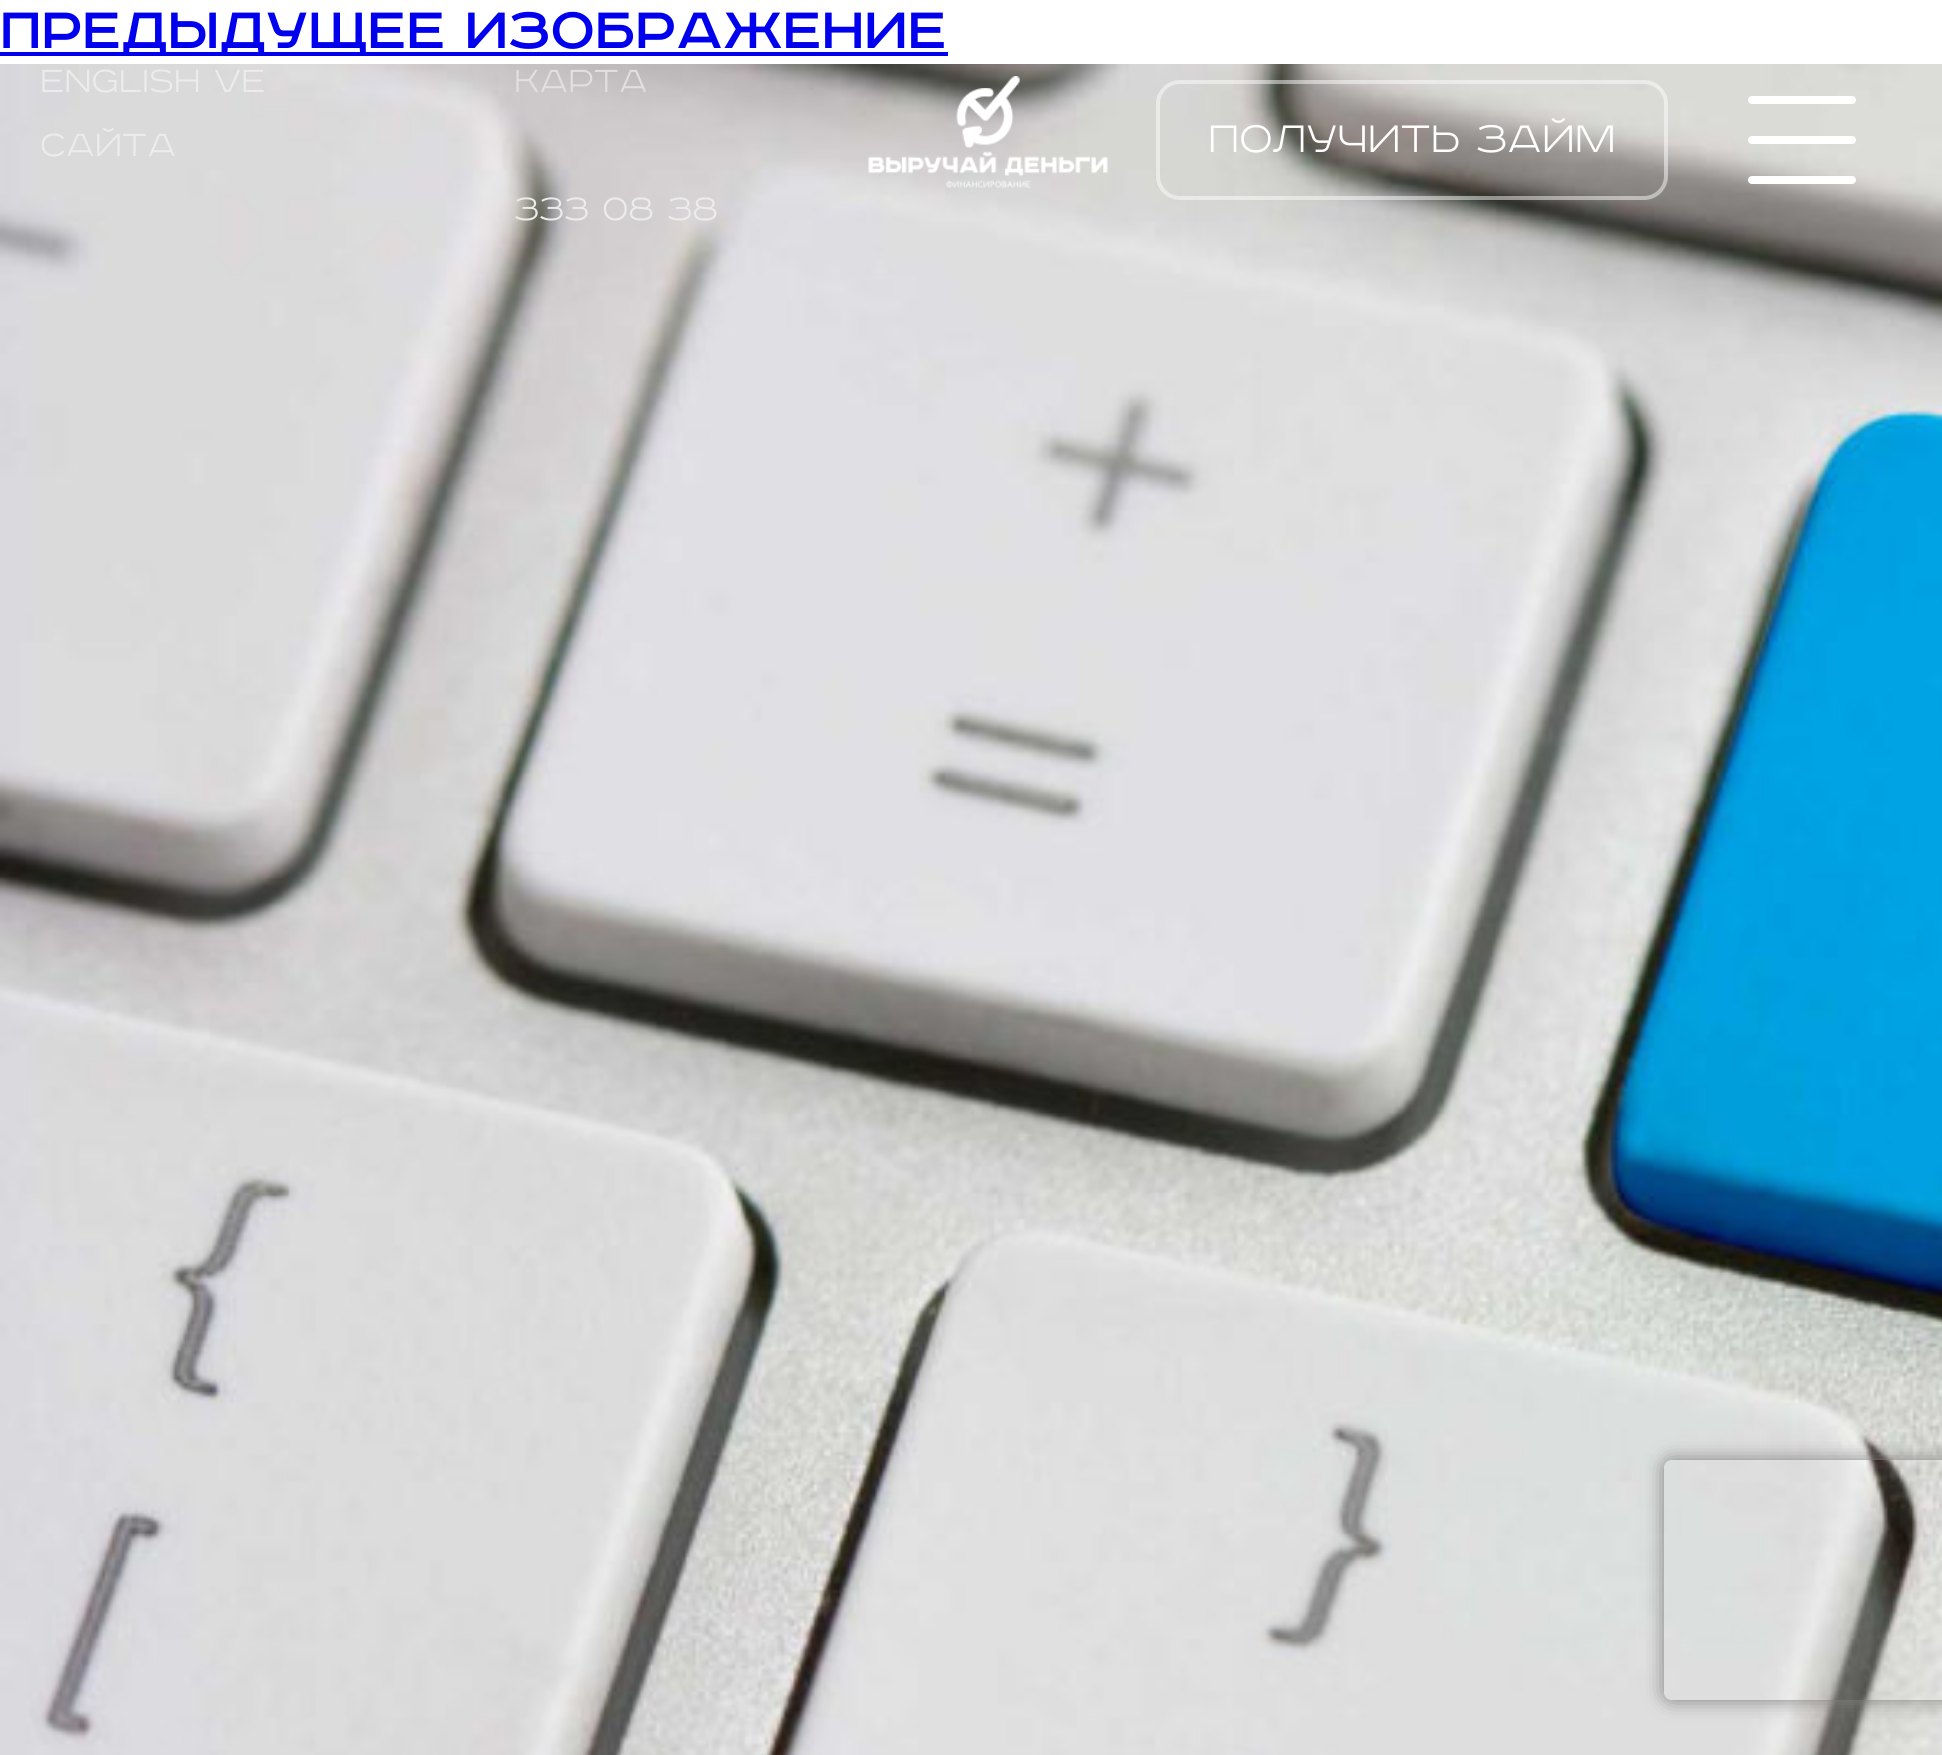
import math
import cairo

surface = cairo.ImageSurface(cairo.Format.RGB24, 1942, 1755)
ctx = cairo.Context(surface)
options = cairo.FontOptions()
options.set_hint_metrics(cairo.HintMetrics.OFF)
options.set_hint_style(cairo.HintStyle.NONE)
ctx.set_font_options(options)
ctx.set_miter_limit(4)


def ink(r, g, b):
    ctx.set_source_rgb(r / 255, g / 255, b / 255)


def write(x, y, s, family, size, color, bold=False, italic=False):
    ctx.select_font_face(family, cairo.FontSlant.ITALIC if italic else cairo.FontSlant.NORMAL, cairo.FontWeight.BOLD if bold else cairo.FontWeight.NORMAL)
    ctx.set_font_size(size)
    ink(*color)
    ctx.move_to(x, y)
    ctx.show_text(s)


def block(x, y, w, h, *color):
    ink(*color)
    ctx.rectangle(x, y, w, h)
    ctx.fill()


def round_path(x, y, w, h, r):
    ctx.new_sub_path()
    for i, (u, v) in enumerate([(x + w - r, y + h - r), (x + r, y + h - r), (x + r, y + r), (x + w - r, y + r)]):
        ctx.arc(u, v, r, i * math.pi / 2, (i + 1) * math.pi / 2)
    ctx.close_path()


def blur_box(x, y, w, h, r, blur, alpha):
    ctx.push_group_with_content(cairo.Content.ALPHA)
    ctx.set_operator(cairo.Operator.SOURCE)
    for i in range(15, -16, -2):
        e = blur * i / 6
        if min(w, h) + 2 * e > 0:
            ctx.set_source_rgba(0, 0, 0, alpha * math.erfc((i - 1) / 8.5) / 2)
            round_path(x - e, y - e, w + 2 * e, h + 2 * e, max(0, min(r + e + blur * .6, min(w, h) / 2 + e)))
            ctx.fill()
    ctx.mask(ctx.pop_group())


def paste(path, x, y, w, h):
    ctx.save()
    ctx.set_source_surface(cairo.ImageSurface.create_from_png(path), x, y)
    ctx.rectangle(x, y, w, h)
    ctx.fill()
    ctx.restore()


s1 = dict(family="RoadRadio", size=64, color=(0, 0, 238))
s2 = dict(family="RoadRadio Thin", size=40, color=(236, 236, 236))
s3 = dict(family="RoadRadio Thin", size=40, color=(225, 223, 224))
s4 = dict(family="RoadRadio Thin", size=48, color=(255, 255, 255))

ink(255, 255, 255)
ctx.paint()
block(0, 52, 948, 4, 0, 0, 238)
write(0, 48, "Предыдущее изображение", **s1)
paste("pic1.png", 0, 64, 1942, 1691)
write(40, 92, "english ve", **s2)
write(514, 92, "карта", **s3)
write(40, 156, "сайта", **s2)
write(514, 220, "333 08 38", **s2)
paste("pic2.png", 868, 76, 240, 112)
round_path(1158, 82, 508, 116, 22)
ctx.set_source_rgba(1, 1, 1, 0.48)
ctx.set_line_width(4)
ctx.stroke()
write(1208, 152, "Получить займ", **s4)
round_path(1748, 96, 108, 8, 4)
ctx.fill()
round_path(1748, 136, 108, 8, 4)
ctx.fill()
round_path(1748, 176, 108, 8, 4)
ctx.fill()
ctx.save()
ctx.set_fill_rule(cairo.FillRule.EVEN_ODD)
ctx.new_path()
ctx.move_to(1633, 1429)
ctx.line_to(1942, 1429)
ctx.line_to(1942, 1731)
ctx.line_to(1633, 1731)
ctx.close_path()
ctx.move_to(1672, 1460)
ctx.line_to(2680, 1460)
ctx.curve_to(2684.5, 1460, 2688, 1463.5, 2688, 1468)
ctx.line_to(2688, 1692)
ctx.curve_to(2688, 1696.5, 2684.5, 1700, 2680, 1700)
ctx.line_to(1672, 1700)
ctx.curve_to(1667.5, 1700, 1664, 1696.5, 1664, 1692)
ctx.line_to(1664, 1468)
ctx.curve_to(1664, 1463.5, 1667.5, 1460, 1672, 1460)
ctx.close_path()
ctx.clip()
ink(128, 128, 128)
blur_box(1664, 1460, 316, 240, 8, 10, 1)
ctx.restore()
surface.write_to_png("screenshot.png")
